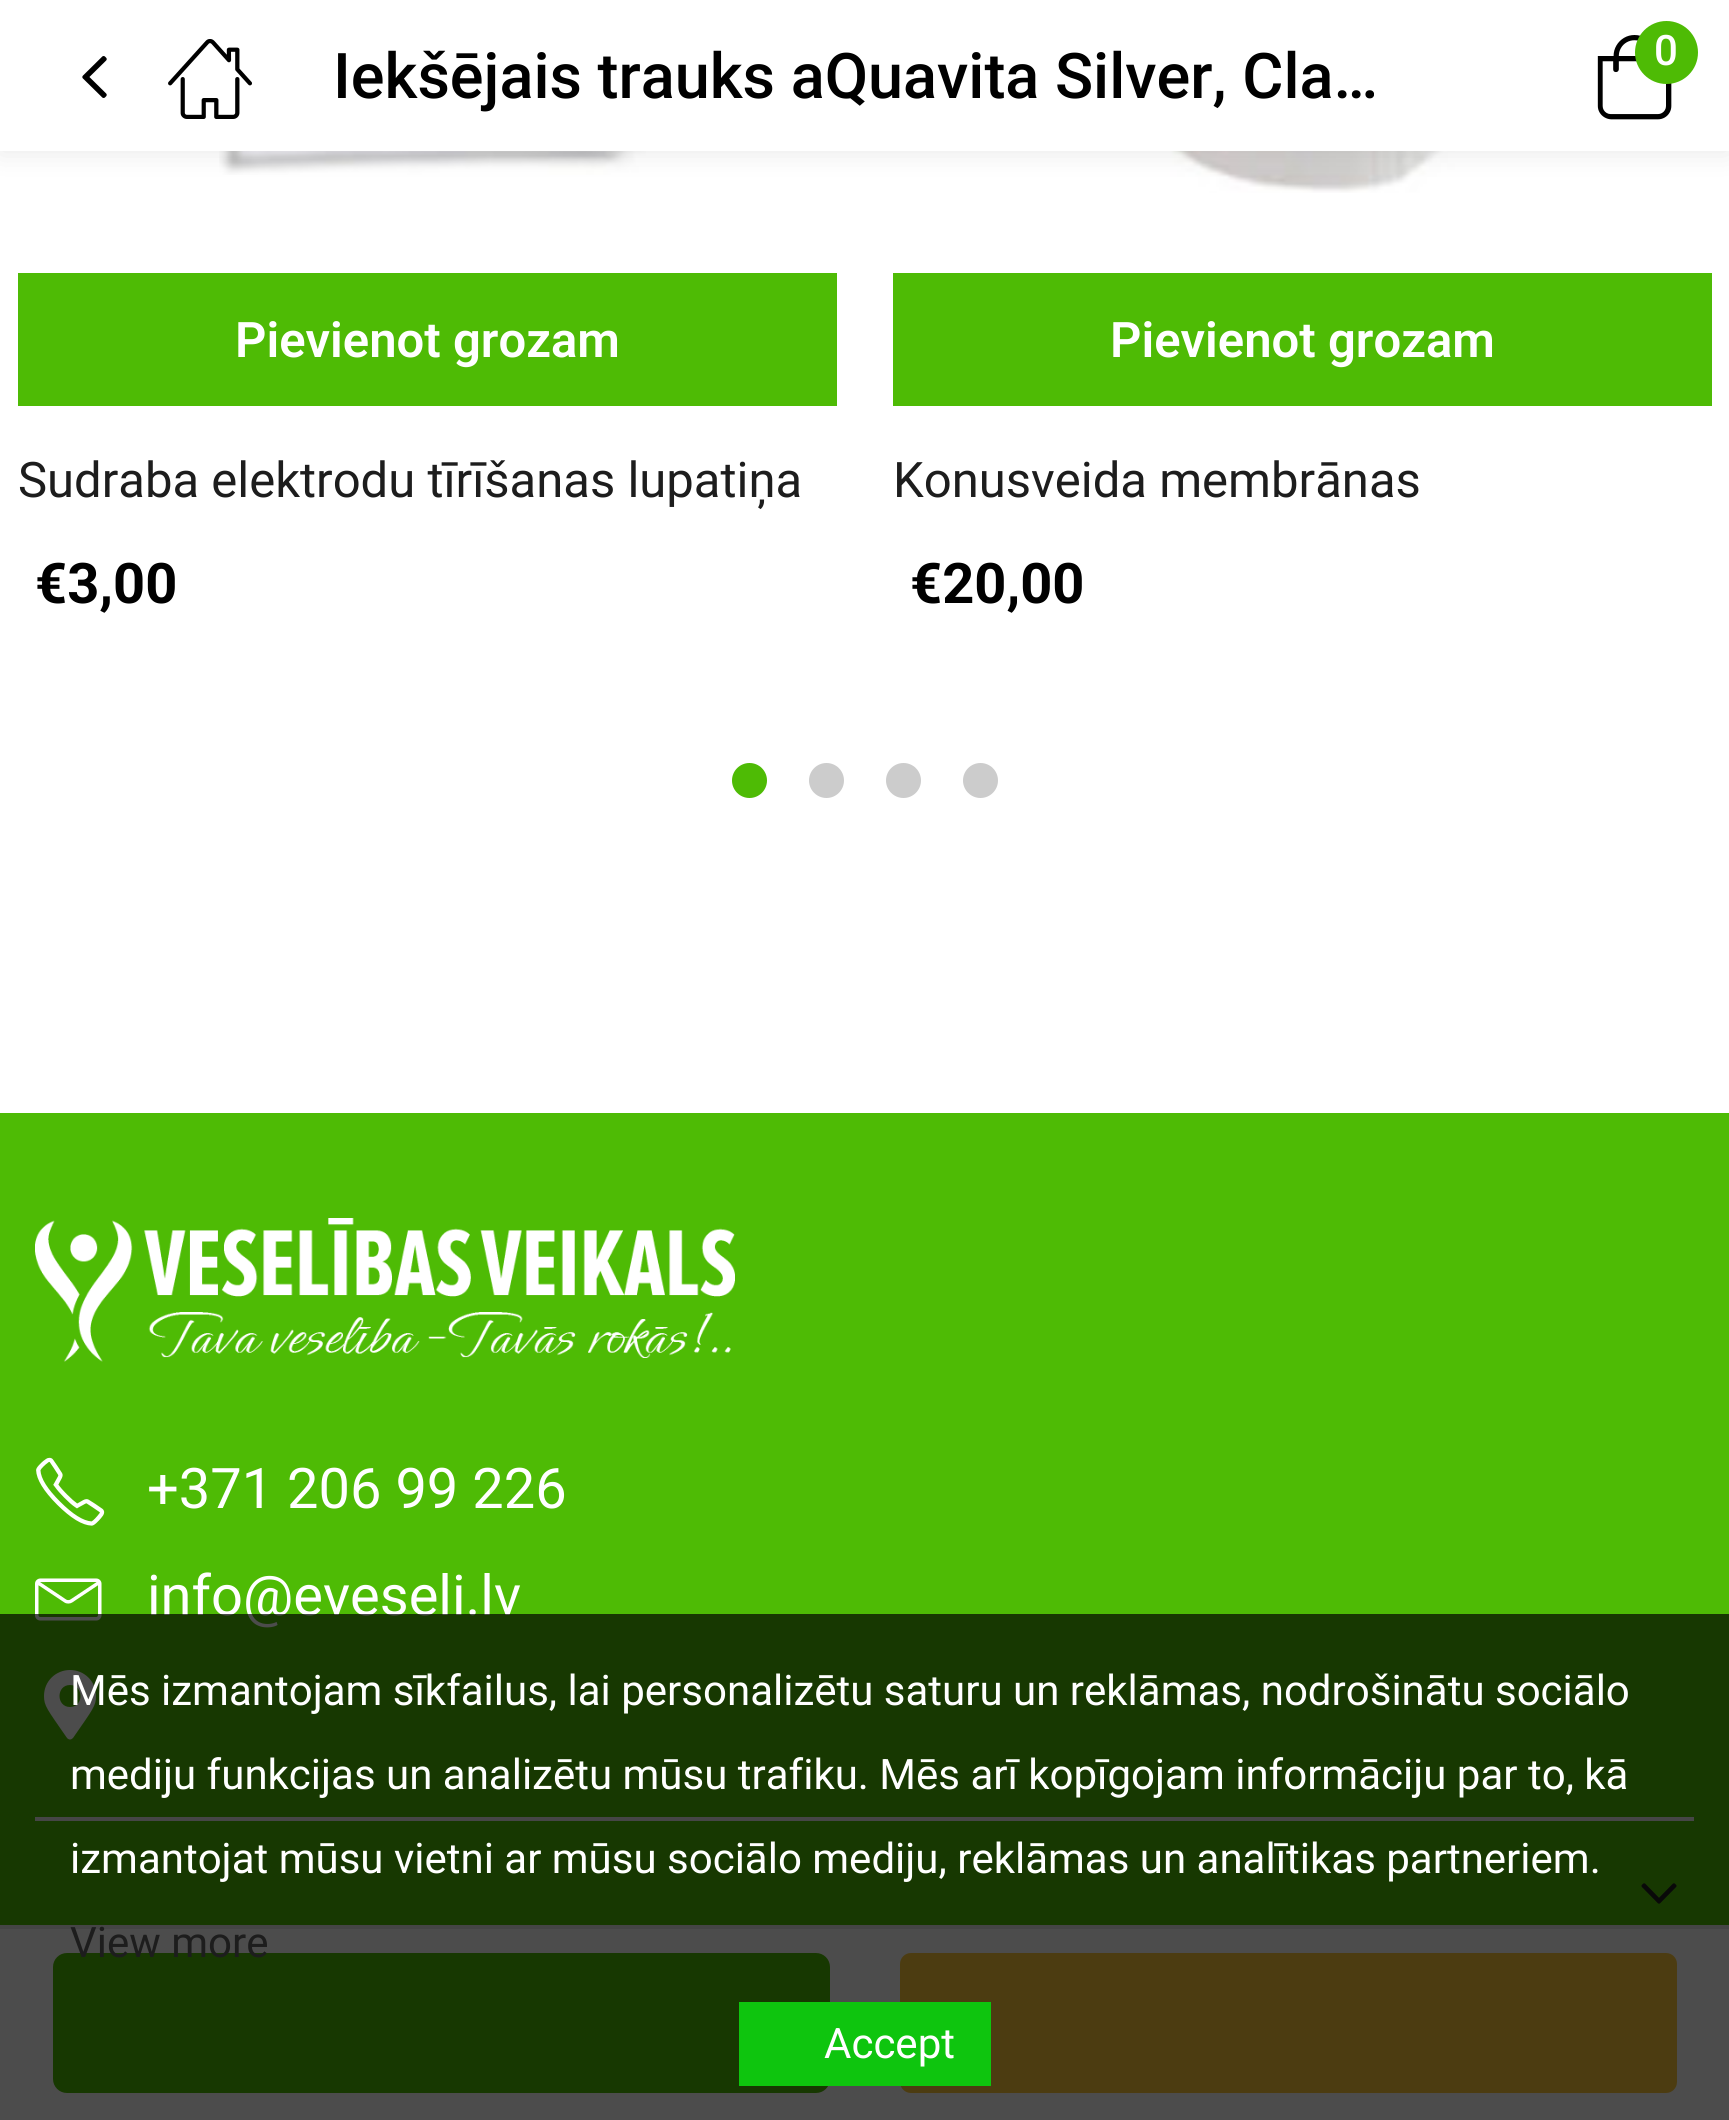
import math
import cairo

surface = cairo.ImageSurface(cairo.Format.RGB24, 1729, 2120)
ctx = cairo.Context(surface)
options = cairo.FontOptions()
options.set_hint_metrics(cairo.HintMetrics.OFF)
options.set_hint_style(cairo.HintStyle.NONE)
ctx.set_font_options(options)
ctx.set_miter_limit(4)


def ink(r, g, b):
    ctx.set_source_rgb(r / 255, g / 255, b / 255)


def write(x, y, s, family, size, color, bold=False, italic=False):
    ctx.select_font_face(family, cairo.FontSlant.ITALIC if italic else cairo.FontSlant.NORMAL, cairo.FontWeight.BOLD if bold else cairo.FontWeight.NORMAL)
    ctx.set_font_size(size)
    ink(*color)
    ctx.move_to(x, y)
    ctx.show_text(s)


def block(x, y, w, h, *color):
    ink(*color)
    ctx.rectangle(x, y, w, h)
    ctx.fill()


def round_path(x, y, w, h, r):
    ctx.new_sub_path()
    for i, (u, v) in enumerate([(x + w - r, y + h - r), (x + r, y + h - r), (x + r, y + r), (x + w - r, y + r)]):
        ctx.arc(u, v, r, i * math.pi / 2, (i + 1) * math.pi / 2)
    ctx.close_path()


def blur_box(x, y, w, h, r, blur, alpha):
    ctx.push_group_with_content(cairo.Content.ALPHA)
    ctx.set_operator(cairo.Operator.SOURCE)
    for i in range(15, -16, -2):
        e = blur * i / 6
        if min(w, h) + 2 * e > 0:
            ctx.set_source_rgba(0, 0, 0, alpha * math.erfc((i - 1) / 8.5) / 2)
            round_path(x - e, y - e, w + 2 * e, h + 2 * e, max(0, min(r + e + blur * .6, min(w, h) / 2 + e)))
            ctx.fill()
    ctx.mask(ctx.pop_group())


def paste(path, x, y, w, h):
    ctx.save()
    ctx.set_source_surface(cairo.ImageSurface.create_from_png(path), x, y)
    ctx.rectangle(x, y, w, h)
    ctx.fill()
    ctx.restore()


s1 = dict(family="Roboto Medium", size=63, color=(0, 0, 0))
s2 = dict(family="Roboto Medium", size=42, color=(255, 255, 255))
s3 = dict(family="Roboto SemiBold", size=49, color=(255, 255, 255))
s4 = dict(family="Roboto", size=49, color=(29, 29, 29))
s5 = dict(family="Roboto", size=56, color=(0, 0, 0), bold=True)
s6 = dict(family="Roboto", size=56, color=(255, 255, 255))
s7 = dict(family="Roboto", size=42, color=(255, 255, 255))
s8 = dict(family="Roboto", size=42, color=(29, 29, 29))

ink(255, 255, 255)
ctx.paint()
paste("pic4.png", 219, 151, 427, 24)
paste("pic5.png", 1143, 151, 318, 42)
ink(0, 0, 0)
blur_box(0, 0, 1729, 151, 0, 14, 0.1)
block(0, 0, 1729, 151, 255, 255, 255)
paste("pic1.png", 82, 56, 25, 42)
paste("pic2.png", 168, 39, 84, 80)
write(333, 98, "Iekšējais trauks aQuavita Silver, Cla…", **s1)
paste("pic3.png", 1597, 35, 75, 85)
ink(78, 187, 5)
ctx.arc(1666.5, 52.5, 31.5, 0, 2 * math.pi)
ctx.fill()
write(1654, 65, "0", **s2)
block(18, 273, 819, 133, 78, 187, 5)
write(235, 357, "Pievienot grozam", **s3)
write(18, 497, "Sudraba elektrodu tīrīšanas lupatiņa", **s4)
write(35, 603, "€3,00", **s5)
block(893, 273, 819, 133, 78, 187, 5)
write(1110, 357, "Pievienot grozam", **s3)
write(893, 497, "Konusveida membrānas", **s4)
write(910, 603, "€20,00", **s5)
ink(78, 187, 5)
ctx.new_path()
ctx.arc(749.5, 780.5, 17.5, 0, 2 * math.pi)
ctx.fill()
ink(204, 204, 204)
ctx.arc(826.5, 780.5, 17.5, 0, 2 * math.pi)
ctx.fill()
ctx.arc(903.5, 780.5, 17.5, 0, 2 * math.pi)
ctx.fill()
ctx.arc(980.5, 780.5, 17.5, 0, 2 * math.pi)
ctx.fill()
block(0, 1925, 1729, 4, 232, 232, 232)
ink(78, 187, 5)
round_path(53, 1953, 777, 140, 14)
ctx.fill()
ink(255, 202, 58)
round_path(900, 1953, 777, 140, 11)
ctx.fill()
block(0, 1113, 1729, 812, 78, 187, 5)
paste("pic6.png", 35, 1218, 700, 144)
paste("pic7.png", 36, 1457, 69, 69)
write(147, 1508, "+371 206 99 226", **s6)
paste("pic8.png", 35, 1578, 67, 43)
write(147, 1615, "info@eveseli.lv", **s6)
ctx.new_path()
ctx.move_to(67, 1738)
ctx.curve_to(47, 1709, 44, 1706, 44, 1696)
ctx.curve_to(44, 1681, 56, 1670, 70, 1670)
ctx.curve_to(84, 1670, 96, 1681, 96, 1696)
ctx.curve_to(96, 1706, 93, 1709, 73, 1738)
ctx.curve_to(71, 1740, 69, 1740, 67, 1738)
ctx.close_path()
ctx.move_to(70, 1707)
ctx.curve_to(84, 1707, 84, 1685, 70, 1685)
ctx.curve_to(56, 1685, 56, 1707, 70, 1707)
ctx.close_path()
ctx.fill()
block(35, 1817, 1659, 4, 235, 235, 235)
paste("pic9.png", 1641, 1883, 36, 21)
ctx.set_source_rgba(0, 0, 0, 0.7)
ctx.rectangle(0, 1614, 1729, 506)
ctx.fill()
write(70, 1705, "Mēs izmantojam sīkfailus, lai personalizētu saturu un reklāmas, nodrošinātu sociālo", **s7)
write(70, 1789, "mediju funkcijas un analizētu mūsu trafiku. Mēs arī kopīgojam informāciju par to, kā", **s7)
write(70, 1873, "izmantojat mūsu vietni ar mūsu sociālo mediju, reklāmas un analītikas partneriem.", **s7)
write(70, 1957, "View more", **s8)
block(739, 2002, 252, 84, 14, 197, 14)
write(824, 2058, "Accept", **s7)
surface.write_to_png("screenshot.png")
